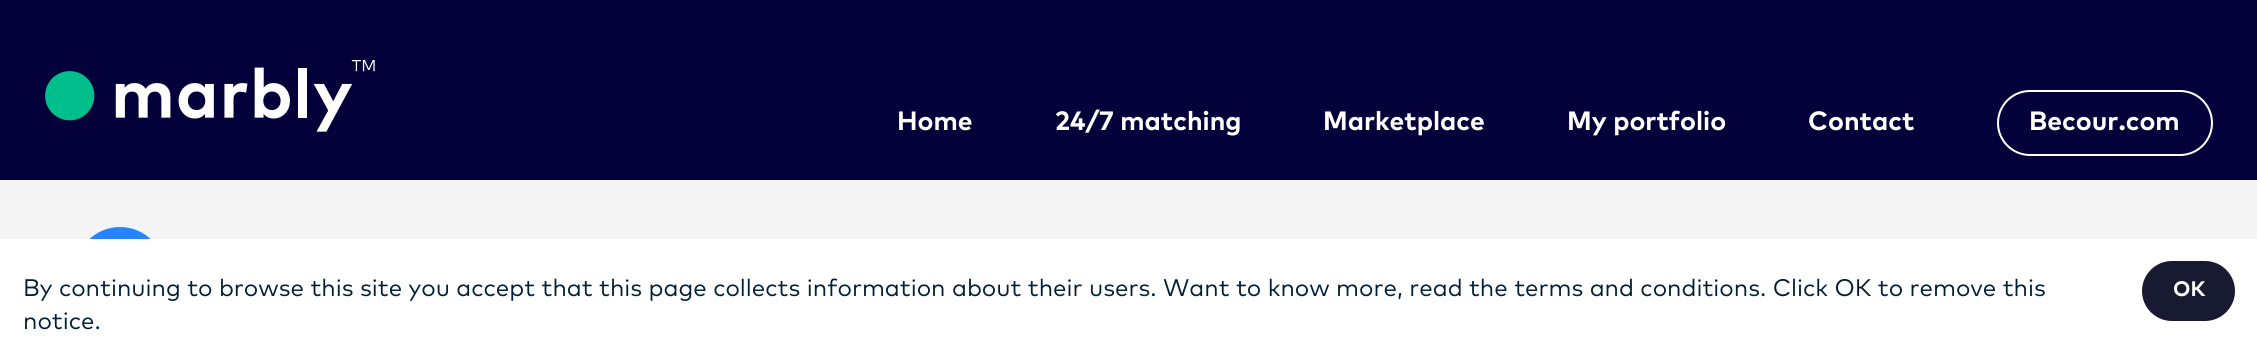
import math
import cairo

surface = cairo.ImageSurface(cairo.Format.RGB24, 2257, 361)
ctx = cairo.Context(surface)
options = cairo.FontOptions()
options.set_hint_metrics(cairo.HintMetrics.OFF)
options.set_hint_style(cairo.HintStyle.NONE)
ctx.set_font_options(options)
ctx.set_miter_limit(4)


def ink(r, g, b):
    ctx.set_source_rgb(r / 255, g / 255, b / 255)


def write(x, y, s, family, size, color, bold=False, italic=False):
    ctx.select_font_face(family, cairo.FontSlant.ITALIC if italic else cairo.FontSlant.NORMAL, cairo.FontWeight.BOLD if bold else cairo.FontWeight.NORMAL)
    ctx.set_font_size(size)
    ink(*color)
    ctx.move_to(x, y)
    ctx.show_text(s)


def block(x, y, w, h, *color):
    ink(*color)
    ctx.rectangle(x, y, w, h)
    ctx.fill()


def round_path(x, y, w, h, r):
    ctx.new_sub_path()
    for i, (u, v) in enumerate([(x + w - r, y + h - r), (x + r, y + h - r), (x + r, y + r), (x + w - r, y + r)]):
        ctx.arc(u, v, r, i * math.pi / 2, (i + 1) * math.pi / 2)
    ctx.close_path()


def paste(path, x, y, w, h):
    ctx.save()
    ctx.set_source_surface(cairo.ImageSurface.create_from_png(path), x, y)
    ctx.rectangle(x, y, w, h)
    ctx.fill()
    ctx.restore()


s1 = dict(family="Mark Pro", size=26.5, color=(255, 255, 255), bold=True)
s2 = dict(family="Mark Pro", size=24, color=(0, 32, 56))
s3 = dict(family="Mark Pro", size=21, color=(255, 255, 255), bold=True)

ink(244, 244, 244)
ctx.paint()
block(0, 0, 2257, 180, 4, 0, 58)
paste("pic1.png", 45, 60, 330, 72)
write(897, 130, "Home", **s1)
write(1055, 130, "24/7 matching", **s1)
write(1323, 130, "Marketplace", **s1)
write(1567, 130, "My portfolio", **s1)
write(1808, 130, "Contact", **s1)
round_path(1998, 91, 214, 64, 32)
ctx.stroke()
write(2029, 130, "Becour.com", **s1)
ink(38, 132, 255)
ctx.new_path()
ctx.arc(120, 272, 45, 0, 2 * math.pi)
ctx.fill()
block(0, 239, 2257, 122, 255, 255, 255)
write(23, 296, "By continuing to browse this site you accept that this page collects information about their users. Want to know more, read the terms and conditions. Click OK to remove this", **s2)
write(23, 329, "notice.", **s2)
ink(24, 26, 49)
round_path(2142, 261, 93, 60, 30)
ctx.fill()
write(2173, 296, "OK", **s3)
surface.write_to_png("screenshot.png")
